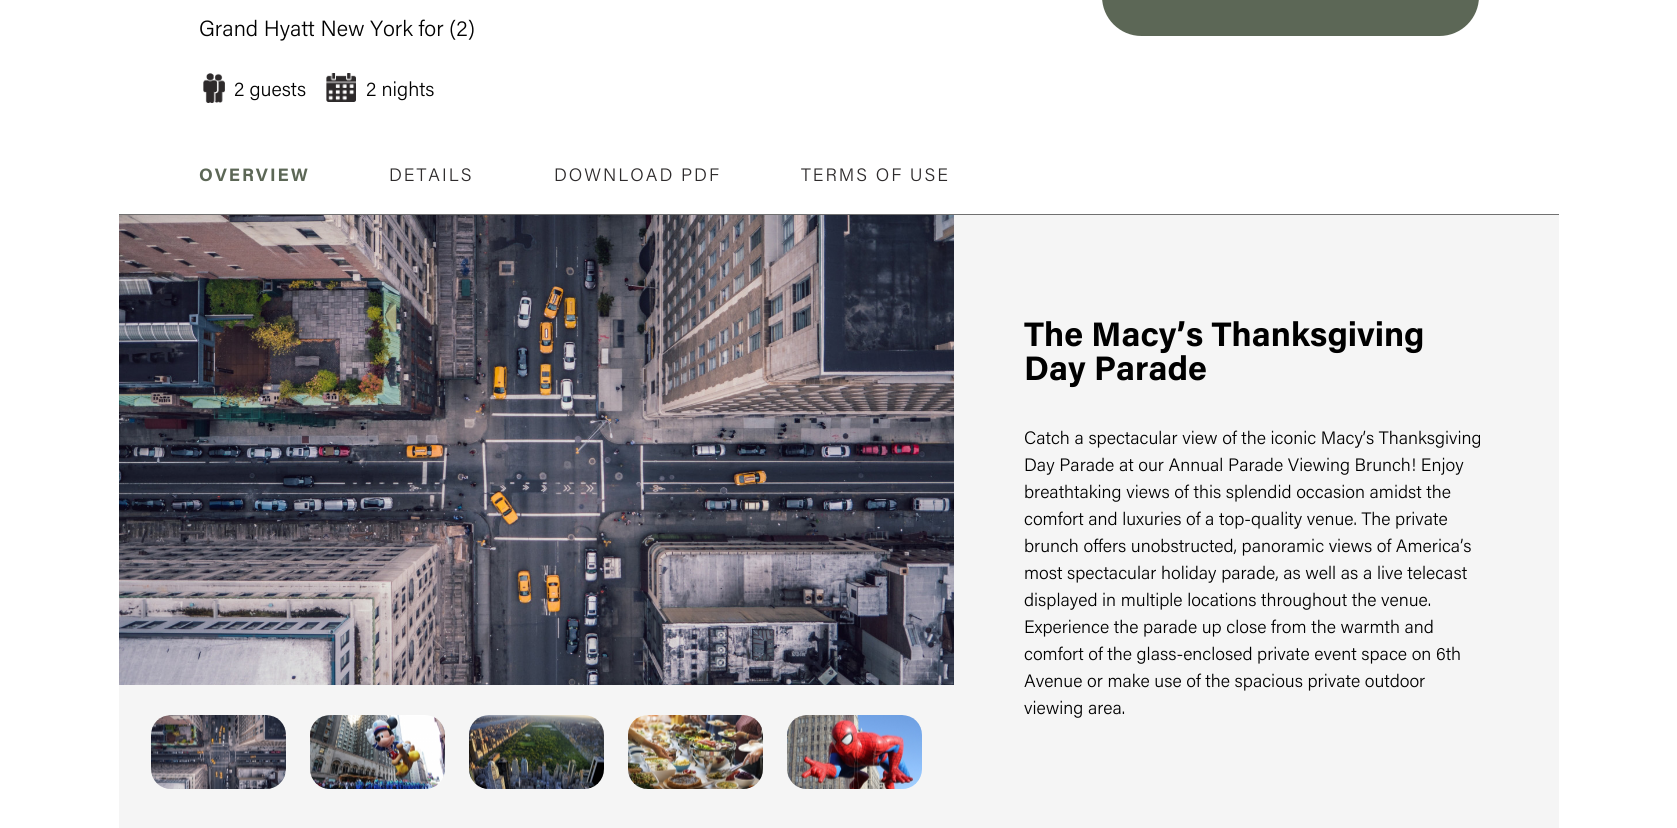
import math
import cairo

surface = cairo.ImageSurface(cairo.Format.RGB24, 1677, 828)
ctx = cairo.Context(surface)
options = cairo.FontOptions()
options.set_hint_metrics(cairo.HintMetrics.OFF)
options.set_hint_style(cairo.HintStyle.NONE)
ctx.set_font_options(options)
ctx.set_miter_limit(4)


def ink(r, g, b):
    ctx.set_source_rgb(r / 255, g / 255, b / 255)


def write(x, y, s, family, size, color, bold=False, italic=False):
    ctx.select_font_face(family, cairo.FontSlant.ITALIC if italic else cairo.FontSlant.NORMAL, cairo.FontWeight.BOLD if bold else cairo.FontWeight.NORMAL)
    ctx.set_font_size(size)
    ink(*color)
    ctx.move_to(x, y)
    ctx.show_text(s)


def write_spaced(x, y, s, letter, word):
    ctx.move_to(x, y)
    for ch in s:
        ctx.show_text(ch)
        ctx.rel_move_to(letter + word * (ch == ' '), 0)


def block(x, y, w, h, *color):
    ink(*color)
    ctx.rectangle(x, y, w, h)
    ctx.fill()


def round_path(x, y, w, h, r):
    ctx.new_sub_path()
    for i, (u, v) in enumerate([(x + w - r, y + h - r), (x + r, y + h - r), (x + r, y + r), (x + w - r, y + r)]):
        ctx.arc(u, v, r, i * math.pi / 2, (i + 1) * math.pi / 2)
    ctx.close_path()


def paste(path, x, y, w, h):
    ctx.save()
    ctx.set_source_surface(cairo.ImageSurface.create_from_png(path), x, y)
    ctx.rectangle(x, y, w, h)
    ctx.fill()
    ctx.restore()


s1 = dict(family="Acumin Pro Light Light", size=22, color=(0, 0, 0))
s2 = dict(family="Acumin Pro Light Light", size=20, color=(0, 0, 0))
s3 = dict(family="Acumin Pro", size=34, color=(0, 0, 0), bold=True)
s4 = dict(family="Acumin Pro Light Light", size=18, color=(0, 0, 0))

ink(255, 255, 255)
ctx.paint()
ink(92, 103, 86)
round_path(1102, -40, 377, 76, 39.5)
ctx.fill()
write(199, 36, "Grand Hyatt New York for (2)", **s1)
paste("pic1.png", 203, 73, 22, 30)
write(234, 96, "2 guests", **s2)
paste("pic2.png", 326, 73, 30, 29)
write(366, 96, "2 nights", **s2)
block(119, 214, 1440, 1, 112, 112, 112)
ctx.select_font_face("Acumin Pro", cairo.FontSlant.NORMAL, cairo.FontWeight.BOLD)
ctx.set_font_size(18)
ink(92, 103, 86)
write_spaced(199, 181, "OVERVIEW", 2, 0)
ctx.select_font_face("Acumin Pro Light Light")
ink(45, 42, 43)
write_spaced(389, 181, "DETAILS", 2, 0)
write_spaced(554, 181, "DOWNLOAD PDF", 2, 0)
write_spaced(801, 181, "TERMS OF USE", 2, 0)
block(119, 215, 1440, 613, 245, 245, 245)
paste("pic3.png", 119, 215, 835, 470)
paste("pic4.png", 151, 715, 135, 74)
paste("pic5.png", 310, 715, 135, 74)
paste("pic6.png", 469, 715, 135, 74)
paste("pic7.png", 628, 715, 135, 74)
paste("pic8.png", 787, 715, 135, 74)
write(1024, 346, "The Macy’s Thanksgiving", **s3)
write(1024, 380, "Day Parade", **s3)
write(1024, 444, "Catch a spectacular view of the iconic Macy’s Thanksgiving", **s4)
write(1024, 471, "Day Parade at our Annual Parade Viewing Brunch! Enjoy", **s4)
write(1024, 498, "breathtaking views of this splendid occasion amidst the", **s4)
write(1024, 525, "comfort and luxuries of a top-quality venue. The private", **s4)
write(1024, 552, "brunch offers unobstructed, panoramic views of America’s", **s4)
write(1024, 579, "most spectacular holiday parade, as well as a live telecast", **s4)
write(1024, 606, "displayed in multiple locations throughout the venue.", **s4)
write(1024, 633, "Experience the parade up close from the warmth and", **s4)
write(1024, 660, "comfort of the glass-enclosed private event space on 6th", **s4)
write(1024, 687, "Avenue or make use of the spacious private outdoor", **s4)
write(1024, 714, "viewing area.", **s4)
surface.write_to_png("screenshot.png")
